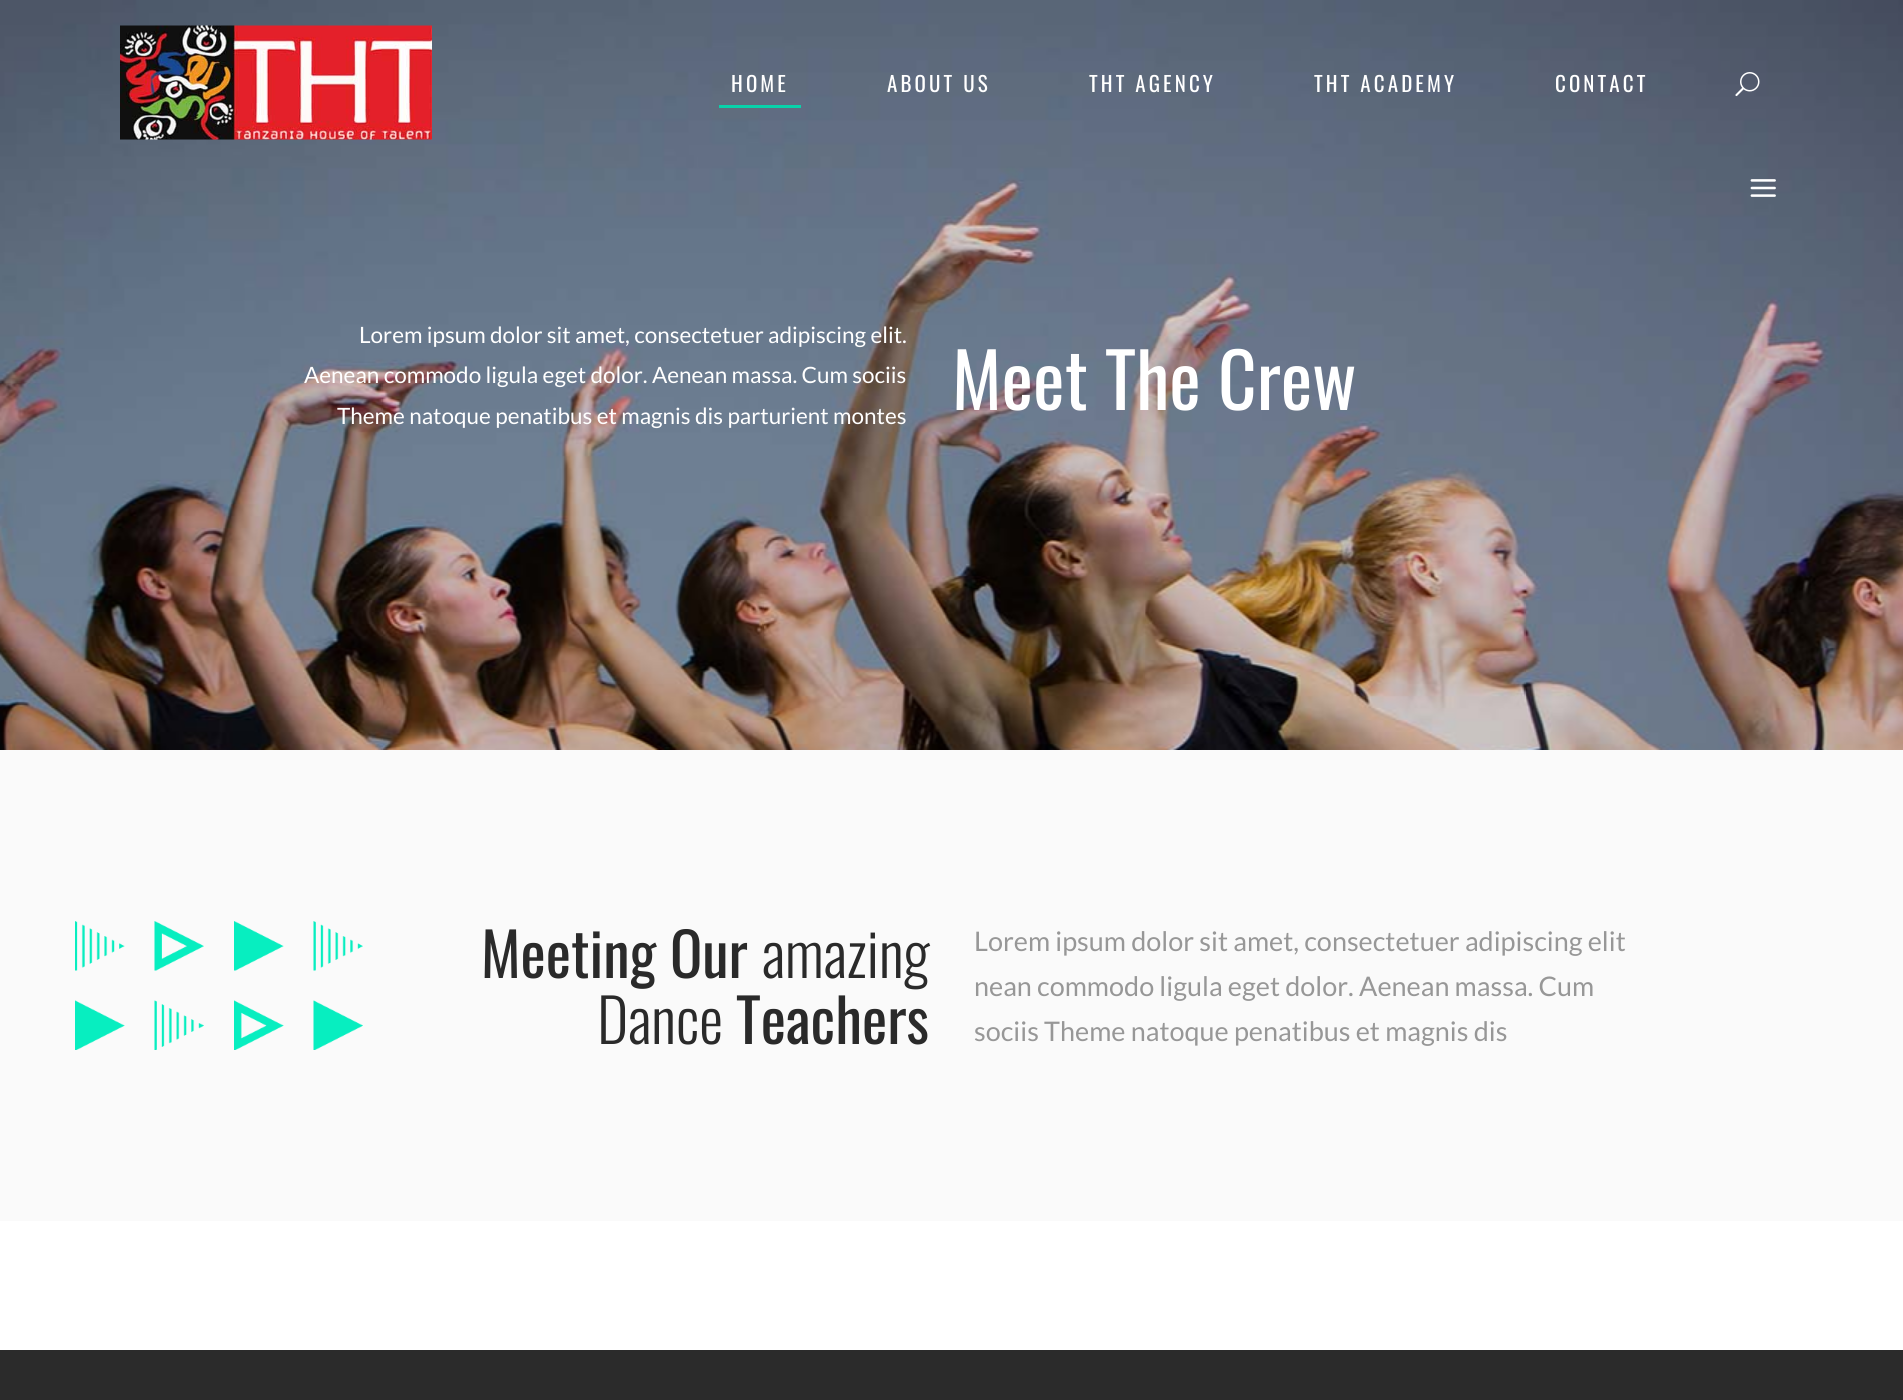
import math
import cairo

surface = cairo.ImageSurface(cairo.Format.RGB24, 1903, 1400)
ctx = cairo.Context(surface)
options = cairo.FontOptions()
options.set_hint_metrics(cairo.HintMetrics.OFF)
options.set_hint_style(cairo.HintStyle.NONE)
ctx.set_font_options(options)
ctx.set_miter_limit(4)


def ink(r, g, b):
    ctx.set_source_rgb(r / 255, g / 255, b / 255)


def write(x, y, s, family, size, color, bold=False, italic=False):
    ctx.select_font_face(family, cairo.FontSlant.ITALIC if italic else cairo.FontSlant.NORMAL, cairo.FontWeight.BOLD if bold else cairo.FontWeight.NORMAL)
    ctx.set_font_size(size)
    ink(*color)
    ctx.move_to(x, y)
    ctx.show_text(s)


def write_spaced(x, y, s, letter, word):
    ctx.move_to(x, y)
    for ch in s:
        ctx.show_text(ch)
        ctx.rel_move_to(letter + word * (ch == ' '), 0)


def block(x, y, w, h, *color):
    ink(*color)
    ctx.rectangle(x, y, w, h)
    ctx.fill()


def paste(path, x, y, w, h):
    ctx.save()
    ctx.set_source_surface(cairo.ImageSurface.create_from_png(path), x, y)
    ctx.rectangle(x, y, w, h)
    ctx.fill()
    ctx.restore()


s1 = dict(family="Lato", size=22.5, color=(255, 255, 255))
s2 = dict(family="Oswald", size=75, color=(255, 255, 255))
s3 = dict(family="Oswald", size=60, color=(42, 42, 42))
s4 = dict(family="Oswald Light", size=60, color=(42, 42, 42))
s5 = dict(family="Lato", size=27, color=(151, 151, 151))

ink(255, 255, 255)
ctx.paint()
paste("pic4.png", 0, 0, 1903, 750)
paste("pic1.png", 120, 25, 312, 115)
ctx.select_font_face("Oswald")
ctx.set_font_size(21)
ink(255, 255, 255)
write_spaced(731, 92, "HOME", 3.1, 0)
write_spaced(887, 92, "ABOUT US", 3.1, 0)
write_spaced(1089, 92, "THT AGENCY", 3.1, 0)
write_spaced(1314, 92, "THT ACADEMY", 3.1, 0)
write_spaced(1555, 92, "CONTACT", 3.1, 0)
block(719, 105, 82, 3, 9, 210, 170)
paste("pic2.png", 1735, 72, 25, 25)
paste("pic3.png", 1750, 179, 26, 18)
write(359, 343, "Lorem ipsum dolor sit amet, consectetuer adipiscing elit.", **s1)
write(304, 383, "Aenean commodo ligula eget dolor. Aenean massa. Cum sociis", **s1)
write(337, 424, "Theme natoque penatibus et magnis dis parturient montes", **s1)
write(952, 410, "Meet The Crew", **s2)
block(0, 750, 1903, 471, 250, 250, 250)
paste("pic5.png", 75, 921, 50, 50)
paste("pic6.png", 154, 921, 50, 50)
paste("pic7.png", 234, 921, 50, 50)
paste("pic8.png", 313, 921, 50, 50)
paste("pic9.png", 75, 1000, 50, 50)
paste("pic10.png", 154, 1000, 50, 50)
paste("pic11.png", 234, 1000, 50, 50)
paste("pic12.png", 313, 1000, 50, 50)
write(481, 978, "Meeting Our", **s3)
write(762, 978, "amazing", **s4)
write(597, 1044, "Dance", **s4)
write(736, 1044, "Teachers", **s3)
write(974, 951, "Lorem ipsum dolor sit amet, consectetuer adipiscing elit", **s5)
write(974, 996, "nean commodo ligula eget dolor. Aenean massa. Cum", **s5)
write(974, 1041, "sociis Theme natoque penatibus et magnis dis", **s5)
block(0, 1350, 1903, 50, 43, 43, 43)
surface.write_to_png("screenshot.png")
